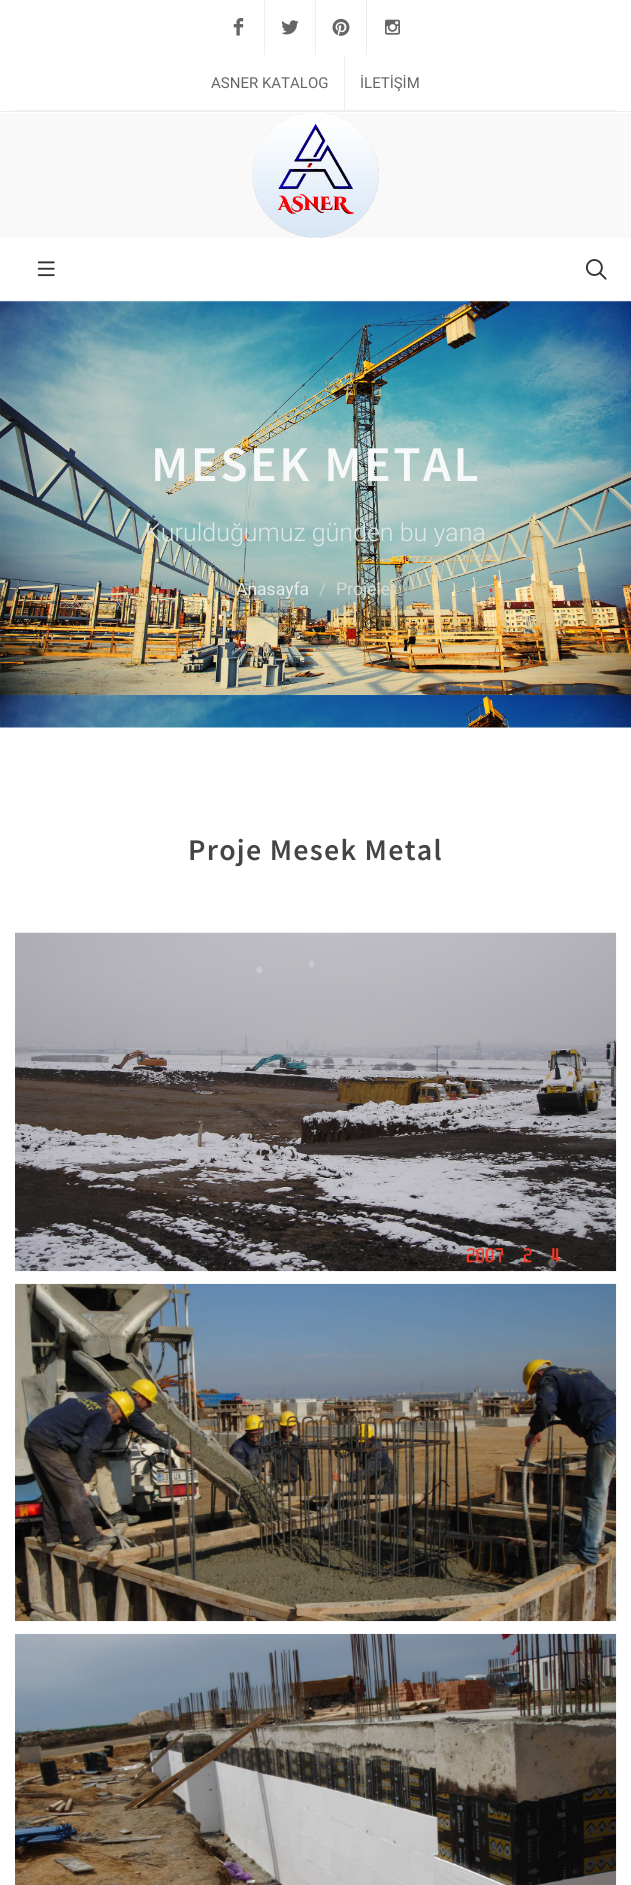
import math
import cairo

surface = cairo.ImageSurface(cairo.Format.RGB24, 631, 1885)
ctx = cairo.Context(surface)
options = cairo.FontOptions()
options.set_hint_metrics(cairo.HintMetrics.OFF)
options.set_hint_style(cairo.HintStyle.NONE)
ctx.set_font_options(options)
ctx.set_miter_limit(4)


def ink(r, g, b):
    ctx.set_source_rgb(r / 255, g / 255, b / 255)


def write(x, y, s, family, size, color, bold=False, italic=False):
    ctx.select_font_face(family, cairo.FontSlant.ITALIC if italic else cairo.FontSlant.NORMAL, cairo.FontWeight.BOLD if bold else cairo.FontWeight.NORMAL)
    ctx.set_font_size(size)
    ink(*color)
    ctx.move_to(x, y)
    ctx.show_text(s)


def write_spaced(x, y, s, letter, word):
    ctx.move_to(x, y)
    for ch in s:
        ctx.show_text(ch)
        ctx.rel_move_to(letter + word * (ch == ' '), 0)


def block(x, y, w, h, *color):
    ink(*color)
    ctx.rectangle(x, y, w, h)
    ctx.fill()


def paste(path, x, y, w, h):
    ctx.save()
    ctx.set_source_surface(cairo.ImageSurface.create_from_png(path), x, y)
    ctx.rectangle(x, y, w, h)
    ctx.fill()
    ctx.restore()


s1 = dict(family="Roboto", size=15, color=(102, 102, 102))
s2 = dict(family="Roboto Light", size=25, color=(223, 233, 231))
s3 = dict(family="Roboto", size=17.5, color=(232, 237, 235))
s4 = dict(family="Roboto", size=17.5, color=(204, 204, 204))
s5 = dict(family="Roboto", size=17.5, color=(214, 219, 214))

ink(255, 255, 255)
ctx.paint()
block(0, 111, 631, 1, 238, 238, 238)
paste("pic1.png", 233, 18, 11, 18)
block(264, 0, 1, 55, 238, 238, 238)
paste("pic2.png", 281, 20, 18, 15)
block(315, 0, 1, 55, 238, 238, 238)
paste("pic3.png", 332, 18, 18, 18)
block(366, 0, 1, 55, 238, 238, 238)
paste("pic4.png", 385, 19, 15, 16)
block(15, 110, 601, 1, 238, 238, 238)
write(211, 88, "ASNER KATALOG", **s1)
block(344, 55, 1, 55, 238, 238, 238)
write(360, 88, "İLETİŞİM", **s1)
block(0, 113, 631, 125, 249, 249, 249)
block(0, 300, 631, 1, 245, 245, 245)
paste("pic5.png", 252, 113, 127, 125)
paste("pic6.png", 37, 261, 18, 16)
paste("pic7.png", 585, 259, 22, 21)
paste("pic8.png", 0, 301, 631, 427)
ctx.select_font_face("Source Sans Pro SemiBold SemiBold")
ctx.set_font_size(50)
ink(247, 249, 248)
write_spaced(151, 481, "MESEK METAL", 2.5, 0)
write(145, 541, "Kurulduğumuz günden bu yana", **s2)
write(236, 595, "Anasayfa", **s3)
write(319, 595, "/", **s4)
write(336, 595, "Projeler", **s5)
ctx.select_font_face("Source Sans Pro SemiBold SemiBold")
ctx.set_font_size(30)
ink(68, 68, 68)
write_spaced(188, 860, "Proje Mesek Metal", 1.25, 0)
paste("pic9.png", 15, 932, 602, 340)
paste("pic10.png", 15, 1283, 602, 339)
paste("pic11.png", 15, 1633, 602, 252)
surface.write_to_png("screenshot.png")
